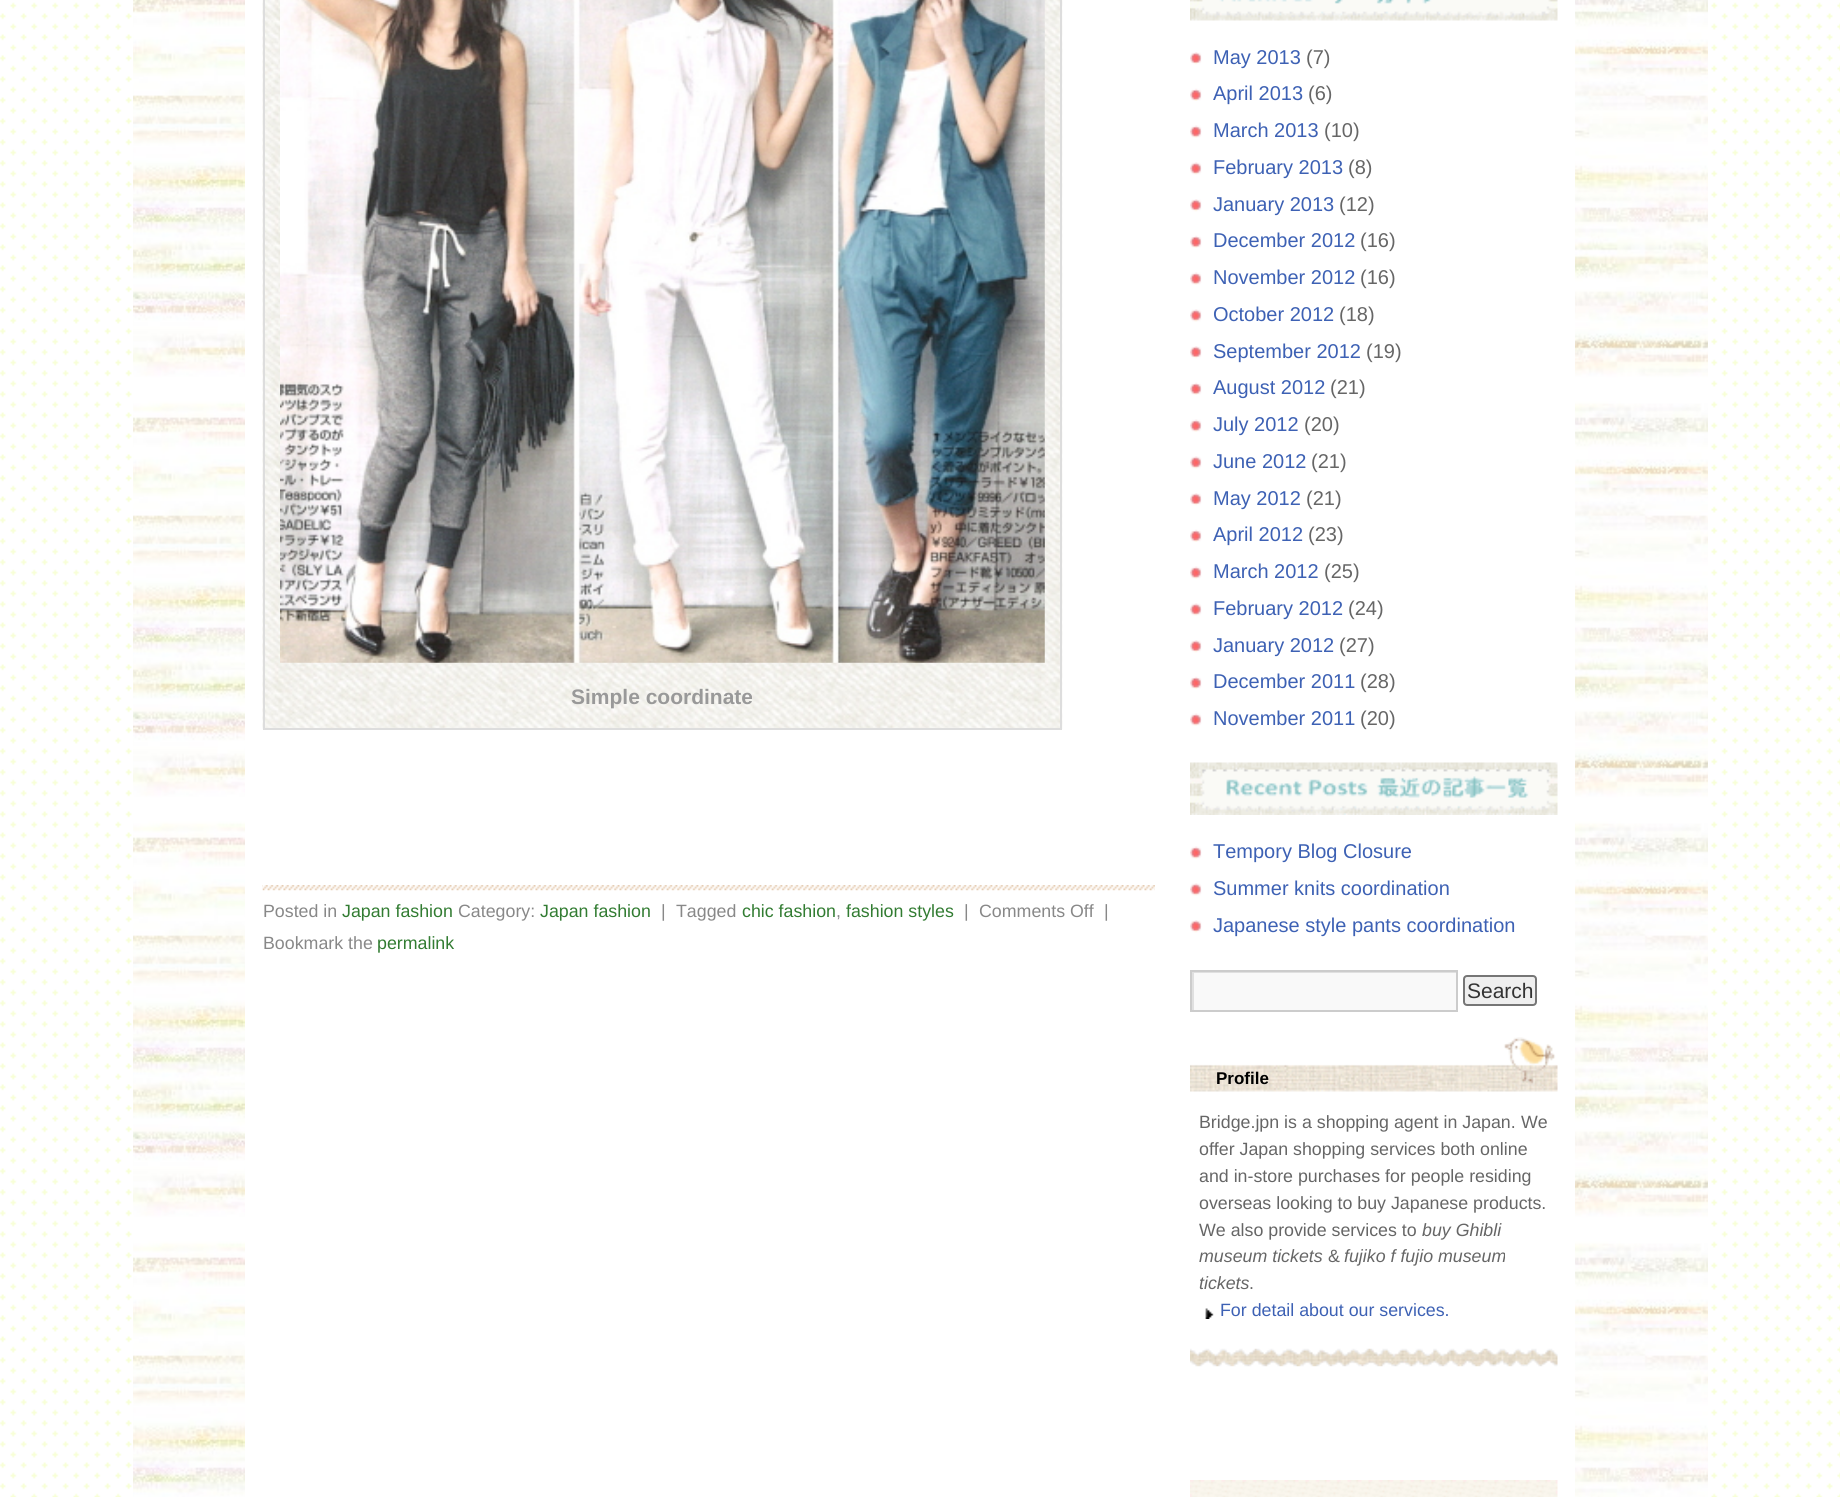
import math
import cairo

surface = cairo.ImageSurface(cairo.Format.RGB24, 1840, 1497)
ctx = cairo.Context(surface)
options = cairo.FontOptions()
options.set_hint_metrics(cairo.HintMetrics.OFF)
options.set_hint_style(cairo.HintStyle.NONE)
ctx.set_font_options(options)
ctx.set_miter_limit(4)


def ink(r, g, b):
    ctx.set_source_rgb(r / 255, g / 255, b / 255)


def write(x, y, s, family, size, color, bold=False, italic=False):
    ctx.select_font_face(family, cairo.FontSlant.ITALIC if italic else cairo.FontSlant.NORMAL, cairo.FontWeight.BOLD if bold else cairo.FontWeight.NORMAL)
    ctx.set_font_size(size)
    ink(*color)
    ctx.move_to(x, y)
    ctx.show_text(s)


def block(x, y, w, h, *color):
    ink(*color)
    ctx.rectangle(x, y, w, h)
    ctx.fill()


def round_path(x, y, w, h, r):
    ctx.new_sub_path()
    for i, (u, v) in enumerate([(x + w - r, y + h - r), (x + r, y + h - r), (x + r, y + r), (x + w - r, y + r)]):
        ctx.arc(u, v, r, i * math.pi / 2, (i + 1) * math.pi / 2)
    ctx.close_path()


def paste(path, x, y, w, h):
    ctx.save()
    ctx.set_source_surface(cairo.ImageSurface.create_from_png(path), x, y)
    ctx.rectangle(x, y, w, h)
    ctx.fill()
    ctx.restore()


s1 = dict(family="Liberation Sans", size=21, color=(153, 153, 153), bold=True)
s2 = dict(family="Liberation Sans", size=17.8, color=(136, 136, 136))
s3 = dict(family="Liberation Sans", size=17.8, color=(50, 124, 50))
s4 = dict(family="Liberation Sans", size=20, color=(61, 97, 180))
s5 = dict(family="Liberation Sans", size=20, color=(102, 102, 102))
s6 = dict(family="Liberation Sans", size=21, color=(51, 51, 51))
s7 = dict(family="Liberation Sans", size=17, color=(0, 0, 0), bold=True)
s8 = dict(family="Liberation Sans", size=17.8, color=(102, 102, 102))
s9 = dict(family="Liberation Sans", size=17.8, color=(102, 102, 102), italic=True)
s10 = dict(family="Liberation Sans", size=17.8, color=(61, 97, 180))

ink(255, 255, 255)
ctx.paint()
paste("pic1.png", 0, 2, 1840, 1495)
paste("pic2.png", 133, 0, 1575, 1497)
block(245, 0, 1330, 1497, 255, 255, 255)
paste("pic3.png", 262, 0, 801, 730)
ctx.rectangle(264, -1, 797, 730)
ink(221, 221, 221)
ctx.stroke()
paste("pic4.png", 280, 0, 765, 663)
write(571, 704, "Simple coordinate", **s1)
paste("pic5.png", 262, 885, 893, 6)
write(263, 917, "Posted in", **s2)
write(342, 917, "Japan fashion", **s3)
write(458, 917, "Category:", **s2)
write(540, 917, "Japan fashion", **s3)
write(661, 917, "|", **s2)
write(676, 917, "Tagged", **s2)
write(742, 917, "chic fashion", **s3)
write(836, 917, ",", **s2)
write(846, 917, "fashion styles", **s3)
write(964, 917, "|", **s2)
write(979, 917, "Comments Off", **s2)
write(1104, 917, "|", **s2)
write(263, 949, "Bookmark the", **s2)
write(377, 949, "permalink", **s3)
paste("pic6.png", 1190, 0, 368, 21)
paste("pic7.png", 1190, 52, 12, 13)
write(1213, 64, "May 2013", **s4)
write(1306, 64, "(7)", **s5)
paste("pic8.png", 1190, 88, 12, 13)
write(1213, 100, "April 2013", **s4)
write(1308, 100, "(6)", **s5)
paste("pic9.png", 1190, 125, 12, 13)
write(1213, 137, "March 2013", **s4)
write(1324, 137, "(10)", **s5)
paste("pic10.png", 1190, 162, 12, 13)
write(1213, 174, "February 2013", **s4)
write(1348, 174, "(8)", **s5)
paste("pic7.png", 1190, 199, 12, 13)
write(1213, 211, "January 2013", **s4)
write(1339, 211, "(12)", **s5)
paste("pic8.png", 1190, 235, 12, 13)
write(1213, 247, "December 2012", **s4)
write(1360, 247, "(16)", **s5)
paste("pic9.png", 1190, 272, 12, 13)
write(1213, 284, "November 2012", **s4)
write(1360, 284, "(16)", **s5)
paste("pic10.png", 1190, 309, 12, 13)
write(1213, 321, "October 2012", **s4)
write(1339, 321, "(18)", **s5)
paste("pic7.png", 1190, 346, 12, 13)
write(1213, 358, "September 2012", **s4)
write(1366, 358, "(19)", **s5)
paste("pic8.png", 1190, 382, 12, 13)
write(1213, 394, "August 2012", **s4)
write(1330, 394, "(21)", **s5)
paste("pic9.png", 1190, 419, 12, 13)
write(1213, 431, "July 2012", **s4)
write(1304, 431, "(20)", **s5)
paste("pic10.png", 1190, 456, 12, 13)
write(1213, 468, "June 2012", **s4)
write(1311, 468, "(21)", **s5)
paste("pic7.png", 1190, 493, 12, 13)
write(1213, 505, "May 2012", **s4)
write(1306, 505, "(21)", **s5)
paste("pic8.png", 1190, 529, 12, 13)
write(1213, 541, "April 2012", **s4)
write(1308, 541, "(23)", **s5)
paste("pic9.png", 1190, 566, 12, 13)
write(1213, 578, "March 2012", **s4)
write(1324, 578, "(25)", **s5)
paste("pic10.png", 1190, 603, 12, 13)
write(1213, 615, "February 2012", **s4)
write(1348, 615, "(24)", **s5)
paste("pic7.png", 1190, 640, 12, 13)
write(1213, 652, "January 2012", **s4)
write(1339, 652, "(27)", **s5)
paste("pic8.png", 1190, 676, 12, 13)
write(1213, 688, "December 2011", **s4)
write(1360, 688, "(28)", **s5)
paste("pic9.png", 1190, 713, 12, 13)
write(1213, 725, "November 2011", **s4)
write(1360, 725, "(20)", **s5)
paste("pic11.png", 1190, 762, 368, 53)
paste("pic9.png", 1190, 846, 12, 13)
write(1213, 858, "Tempory Blog Closure", **s4)
paste("pic10.png", 1190, 883, 12, 13)
write(1213, 895, "Summer knits coordination", **s4)
paste("pic7.png", 1190, 920, 12, 13)
write(1213, 932, "Japanese style pants coordination", **s4)
block(1194, 973, 262, 37, 249, 249, 249)
ctx.save()
ctx.rectangle(1192, 971, 264, 39)
ctx.clip()
ink(224, 224, 224)
ctx.set_fill_rule(cairo.FillRule.EVEN_ODD)
ctx.new_path()
ctx.move_to(1018, 798)
ctx.line_to(1629, 798)
ctx.line_to(1629, 1183)
ctx.line_to(1018, 1183)
ctx.close_path()
ctx.move_to(1194, 973)
ctx.line_to(1458, 973)
ctx.line_to(1458, 1012)
ctx.line_to(1194, 1012)
ctx.close_path()
ctx.fill()
ctx.restore()
ctx.rectangle(1191, 971, 266, 40)
ink(204, 204, 204)
ctx.stroke()
ink(239, 239, 239)
round_path(1464, 976, 72, 29, 3)
ctx.fill_preserve()
ink(118, 118, 118)
ctx.stroke()
write(1467, 998, "Search", **s6)
paste("pic12.png", 1190, 1037, 368, 55)
paste("pic13.png", 1190, 1348, 368, 19)
write(1216, 1084, "Profile", **s7)
write(1199, 1128, "Bridge.jpn is a shopping agent in Japan.", **s8)
write(1521, 1128, "We", **s8)
write(1199, 1155, "offer Japan shopping services both online", **s8)
write(1199, 1182, "and in-store purchases for people residing", **s8)
write(1199, 1209, "overseas looking to buy Japanese products.", **s8)
write(1199, 1236, "We also provide services to", **s8)
write(1422, 1236, "buy Ghibli", **s9)
write(1199, 1262, "museum tickets", **s9)
write(1328, 1262, "&", **s8)
write(1344, 1262, "fujiko f fujio museum", **s9)
write(1199, 1289, "tickets", **s9)
write(1249, 1289, ".", **s8)
paste("pic14.png", 1205, 1308, 9, 11)
write(1220, 1316, "For detail about our services.", **s10)
paste("pic15.png", 1190, 1480, 368, 17)
surface.write_to_png("screenshot.png")
